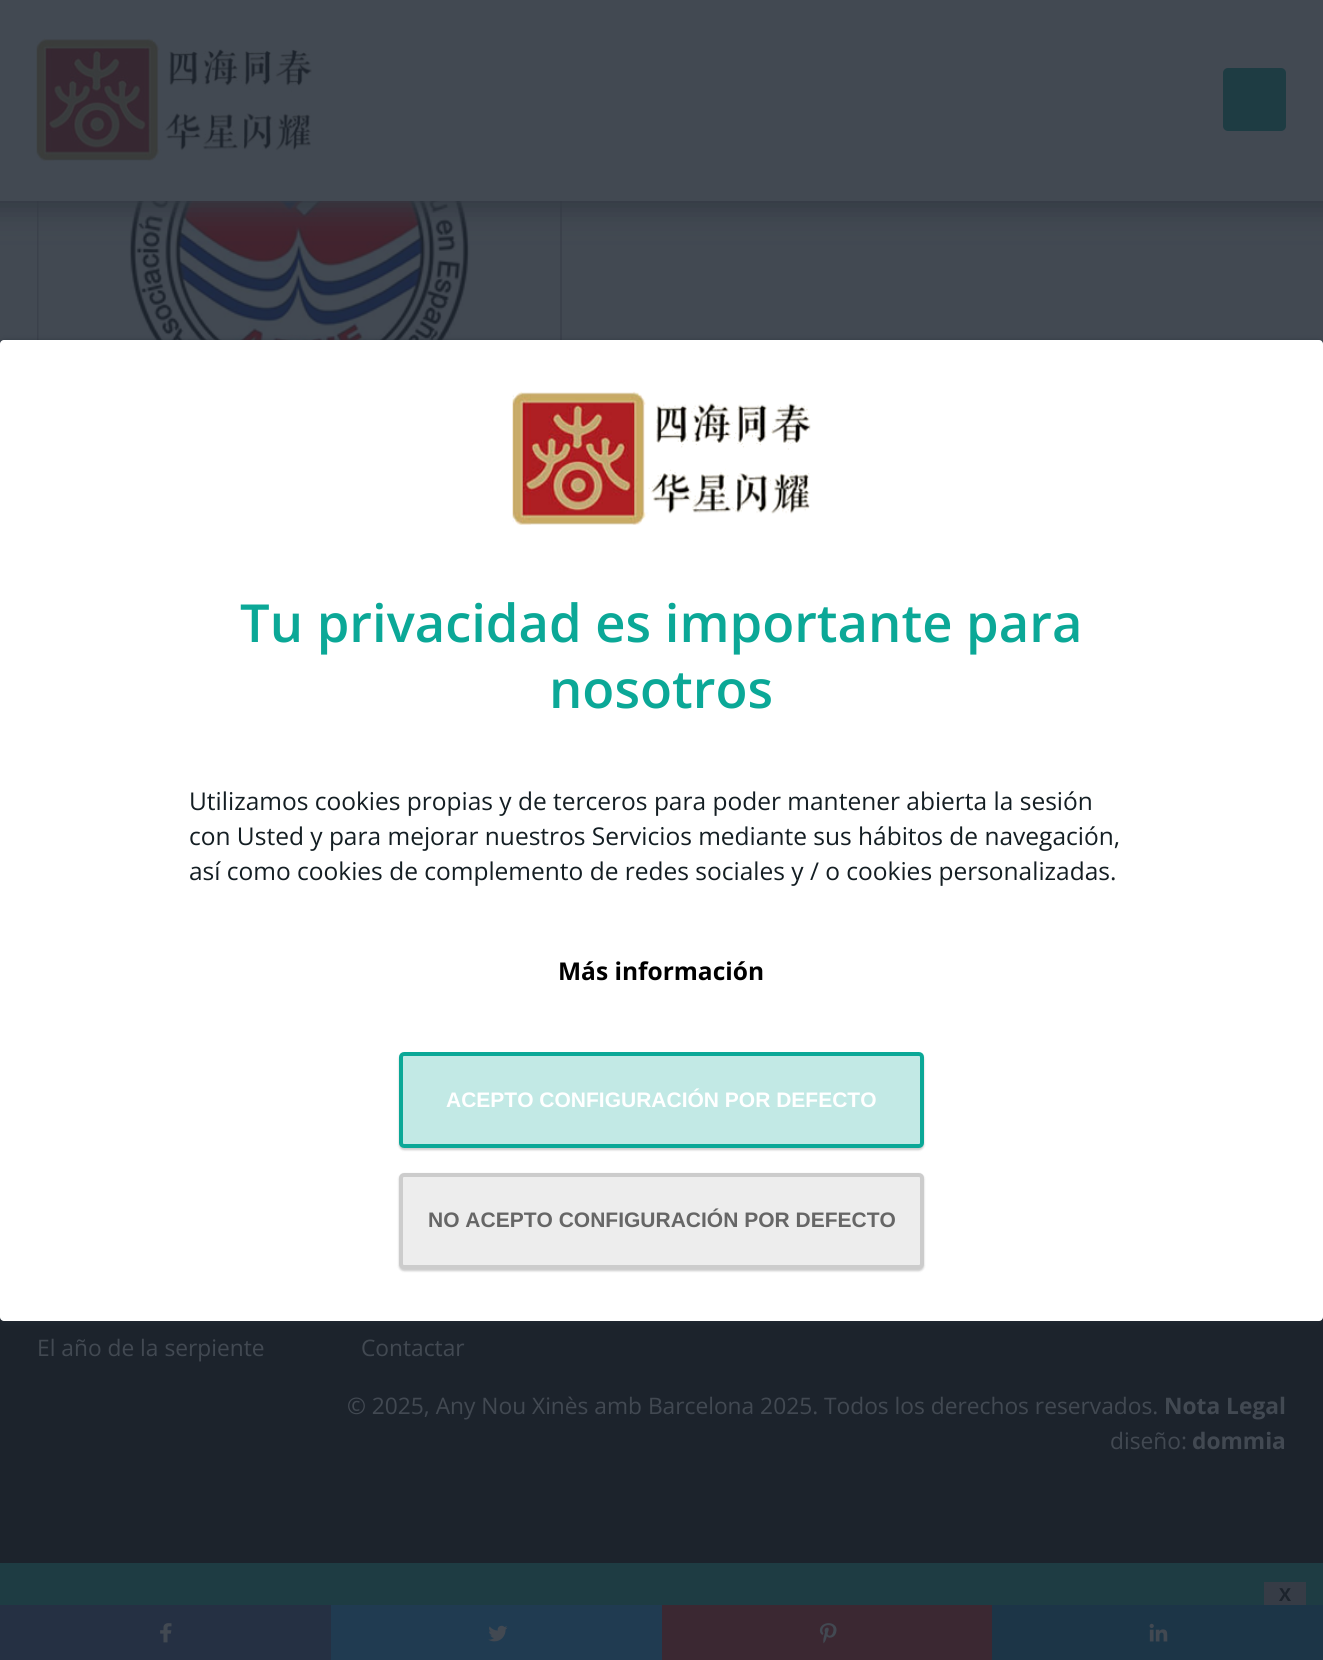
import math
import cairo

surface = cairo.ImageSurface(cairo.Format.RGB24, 1323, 1660)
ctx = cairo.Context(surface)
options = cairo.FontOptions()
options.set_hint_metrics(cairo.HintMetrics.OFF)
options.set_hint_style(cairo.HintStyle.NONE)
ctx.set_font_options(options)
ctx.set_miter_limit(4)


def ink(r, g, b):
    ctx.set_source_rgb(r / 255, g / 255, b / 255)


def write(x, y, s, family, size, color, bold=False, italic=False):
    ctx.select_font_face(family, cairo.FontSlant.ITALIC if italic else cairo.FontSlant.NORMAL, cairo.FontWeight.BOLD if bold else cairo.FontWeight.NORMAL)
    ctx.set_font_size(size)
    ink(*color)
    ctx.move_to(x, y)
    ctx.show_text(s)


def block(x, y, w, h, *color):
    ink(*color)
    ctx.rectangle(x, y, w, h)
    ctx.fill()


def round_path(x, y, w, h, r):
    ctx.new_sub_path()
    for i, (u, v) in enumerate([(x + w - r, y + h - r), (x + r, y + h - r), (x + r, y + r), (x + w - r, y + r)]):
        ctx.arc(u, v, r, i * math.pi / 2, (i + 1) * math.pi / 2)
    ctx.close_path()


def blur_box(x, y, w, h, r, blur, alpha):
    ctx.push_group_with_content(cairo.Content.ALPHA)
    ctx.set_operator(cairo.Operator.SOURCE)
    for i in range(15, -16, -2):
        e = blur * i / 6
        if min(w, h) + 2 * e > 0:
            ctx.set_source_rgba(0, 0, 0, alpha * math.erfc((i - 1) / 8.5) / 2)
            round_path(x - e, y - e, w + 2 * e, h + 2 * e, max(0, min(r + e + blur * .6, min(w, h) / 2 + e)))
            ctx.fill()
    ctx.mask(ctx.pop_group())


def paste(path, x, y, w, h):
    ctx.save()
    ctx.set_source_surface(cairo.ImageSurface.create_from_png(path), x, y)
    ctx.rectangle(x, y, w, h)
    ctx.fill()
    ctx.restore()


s1 = dict(family="Open Sans SemiBold", size=52.5, color=(11, 168, 151))
s2 = dict(family="Open Sans", size=24.5, color=(20, 30, 35))
s3 = dict(family="Open Sans", size=24.5, color=(0, 0, 0), bold=True)
s4 = dict(family="Liberation Sans", size=21, color=(255, 255, 255), bold=True)
s5 = dict(family="Liberation Sans", size=21, color=(102, 102, 102), bold=True)
s6 = dict(family="Open Sans", size=22.75, color=(66, 73, 82))
s7 = dict(family="Open Sans", size=22.75, color=(66, 73, 82), bold=True)
s8 = dict(family="Open Sans", size=18, color=(28, 35, 44), bold=True)

ink(66, 73, 82)
ctx.paint()
ctx.rectangle(38, 54, 523, 395)
ink(59, 65, 75)
ctx.stroke()
paste("pic2.png", 38, 201, 522, 139)
ink(51, 58, 67)
blur_box(-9, -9, 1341, 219, 0, 14, 1)
block(0, 0, 1323, 201, 66, 73, 82)
paste("pic1.png", 36, 38, 276, 123)
ink(30, 60, 67)
round_path(1223, 68, 63, 63, 5)
ctx.fill()
block(0, 1317, 1323, 246, 28, 35, 44)
ink(33, 41, 52)
blur_box(0, 341, 1323, 982, 4, 2.5, 0.75)
ink(255, 255, 255)
round_path(0, 340, 1323, 981, 4)
ctx.fill()
paste("pic3.png", 512, 391, 299, 134)
write(240, 642, "Tu privacidad es importante para", **s1)
write(549, 708, "nosotros", **s1)
write(189, 810, "Utilizamos cookies propias y de terceros para poder mantener abierta la sesión", **s2)
write(189, 845, "con Usted y para mejorar nuestros Servicios mediante sus hábitos de navegación,", **s2)
write(189, 880, "así como cookies de complemento de redes sociales y / o cookies personalizadas.", **s2)
write(558, 980, "Más información", **s3)
ink(0, 0, 0)
blur_box(399, 1054, 525, 96, 5, 1, 0.2)
ink(194, 233, 229)
round_path(401, 1054, 521, 92, 3)
ctx.fill_preserve()
ink(11, 168, 151)
ctx.set_line_width(4)
ctx.stroke()
write(446, 1107, "ACEPTO CONFIGURACIÓN POR DEFECTO", **s4)
ink(0, 0, 0)
blur_box(399, 1174, 525, 97, 5, 1, 0.2)
ink(237, 237, 237)
round_path(401, 1175, 521, 92, 3)
ctx.fill_preserve()
ink(204, 204, 204)
ctx.stroke()
write(428, 1227, "NO ACEPTO CONFIGURACIÓN POR DEFECTO", **s5)
block(0, 1563, 1323, 42, 30, 60, 67)
write(37, 1356, "El año de la serpiente", **s6)
write(361, 1356, "Contactar", **s6)
write(347, 1414, "© 2025, Any Nou Xinès amb Barcelona 2025. Todos los derechos reservados.", **s6)
write(1164, 1414, "Nota Legal", **s7)
write(1110, 1449, "diseño:", **s6)
write(1192, 1449, "dommia", **s7)
block(1264, 1582, 42, 23, 54, 60, 70)
write(1279, 1601, "X", **s8)
block(0, 1605, 331, 55, 37, 48, 67)
paste("pic4.png", 160, 1623, 12, 20)
block(331, 1605, 331, 55, 32, 59, 81)
paste("pic5.png", 488, 1625, 20, 17)
block(662, 1605, 330, 55, 59, 40, 50)
paste("pic6.png", 819, 1623, 18, 21)
block(992, 1605, 331, 55, 28, 53, 71)
paste("pic7.png", 1149, 1623, 19, 19)
surface.write_to_png("screenshot.png")
